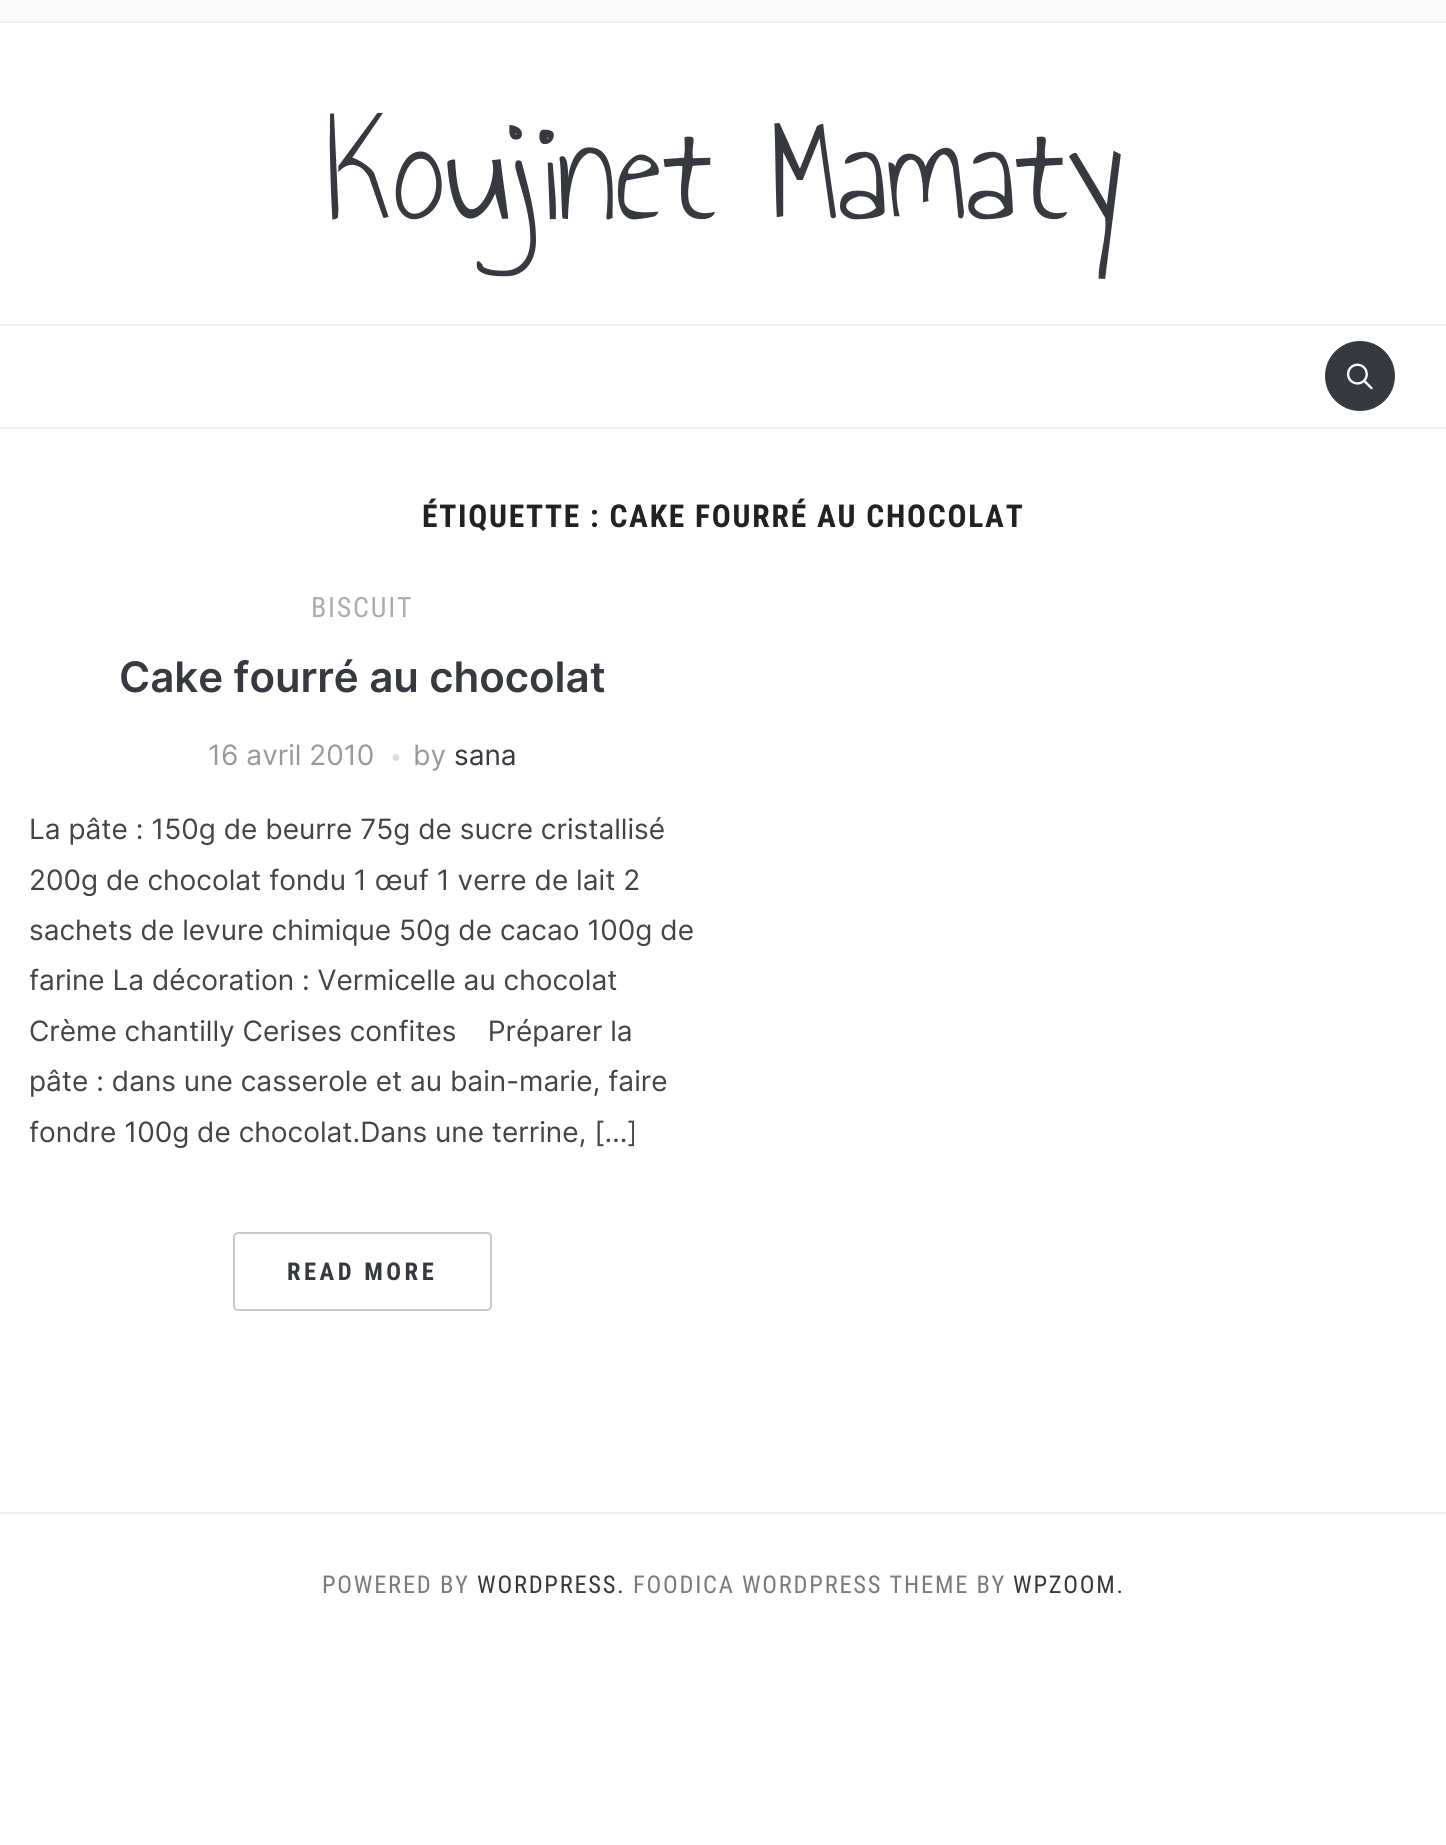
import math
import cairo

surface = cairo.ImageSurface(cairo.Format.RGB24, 1446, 1845)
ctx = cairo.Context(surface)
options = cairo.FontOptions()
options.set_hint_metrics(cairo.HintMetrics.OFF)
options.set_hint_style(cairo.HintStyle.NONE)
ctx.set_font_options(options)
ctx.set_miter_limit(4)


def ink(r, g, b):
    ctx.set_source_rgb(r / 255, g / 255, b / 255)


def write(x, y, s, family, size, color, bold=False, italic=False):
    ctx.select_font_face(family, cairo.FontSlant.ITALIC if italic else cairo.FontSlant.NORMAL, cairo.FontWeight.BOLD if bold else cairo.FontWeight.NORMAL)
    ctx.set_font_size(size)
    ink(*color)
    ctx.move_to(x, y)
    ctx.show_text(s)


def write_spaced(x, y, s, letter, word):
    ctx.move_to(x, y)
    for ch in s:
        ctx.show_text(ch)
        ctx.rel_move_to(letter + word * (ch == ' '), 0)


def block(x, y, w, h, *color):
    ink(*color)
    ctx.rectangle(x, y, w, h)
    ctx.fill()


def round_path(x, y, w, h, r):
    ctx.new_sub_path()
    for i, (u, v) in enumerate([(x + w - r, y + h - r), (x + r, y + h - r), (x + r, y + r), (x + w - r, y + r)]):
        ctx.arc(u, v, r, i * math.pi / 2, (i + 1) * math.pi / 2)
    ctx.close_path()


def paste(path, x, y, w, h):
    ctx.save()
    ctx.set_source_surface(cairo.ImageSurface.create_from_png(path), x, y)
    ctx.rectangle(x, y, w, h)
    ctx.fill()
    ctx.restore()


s1 = dict(family="Inter SemiBold", size=42, color=(54, 57, 64))
s2 = dict(family="Inter", size=28, color=(153, 153, 153))
s3 = dict(family="Liberation Sans", size=16, color=(219, 221, 221))
s4 = dict(family="Inter", size=28, color=(54, 57, 64))
s5 = dict(family="Inter", size=28, color=(68, 68, 68))

ink(255, 255, 255)
ctx.paint()
block(0, 0, 1446, 21, 250, 250, 250)
block(0, 21, 1446, 2, 240, 240, 240)
ctx.select_font_face("Annie Use Your Telescope")
ctx.set_font_size(148.75)
ink(54, 57, 64)
write_spaced(325, 219, "Koujinet Mamaty", -1.75, 0)
block(0, 324, 1446, 2, 240, 240, 240)
block(0, 427, 1446, 2, 240, 240, 240)
ink(54, 57, 64)
ctx.new_path()
ctx.arc(1360, 376, 35, 0, 2 * math.pi)
ctx.fill()
paste("pic1.png", 1346, 363, 27, 27)
ctx.select_font_face("Roboto Condensed", cairo.FontSlant.NORMAL, cairo.FontWeight.BOLD)
ctx.set_font_size(31.5)
ink(34, 34, 34)
write_spaced(422, 527, "ÉTIQUETTE : CAKE FOURRÉ AU CHOCOLAT", 1.75, 0)
ctx.select_font_face("Roboto Condensed")
ctx.set_font_size(28)
ink(172, 172, 172)
write_spaced(311, 617, "BISCUIT", 1.75, 0)
write(119, 692, "Cake fourré au chocolat", **s1)
write(208, 765, "16 avril 2010", **s2)
write(391, 762, "●", **s3)
write(413, 765, "by", **s2)
write(454, 765, "sana", **s4)
write(29, 839, "La pâte : 150g de beurre 75g de sucre cristallisé", **s5)
write(29, 890, "200g de chocolat fondu 1 œuf 1 verre de lait 2", **s5)
write(29, 940, "sachets de levure chimique 50g de cacao 100g de", **s5)
ctx.save()
ctx.rectangle(30, 586, 667, 777)
ctx.clip()
write(29, 990, "farine La décoration : Vermicelle au chocolat", **s5)
ctx.restore()
write(29, 1041, "Crème chantilly Cerises confites    Préparer la", **s5)
write(29, 1091, "pâte : dans une casserole et au bain-marie, faire", **s5)
ctx.save()
ctx.rectangle(30, 586, 667, 777)
ctx.clip()
write(29, 1142, "fondre 100g de chocolat.Dans une terrine, […]", **s5)
ctx.restore()
round_path(234, 1233, 257, 77, 4)
ink(199, 201, 207)
ctx.stroke()
ctx.select_font_face("Roboto Condensed", cairo.FontSlant.NORMAL, cairo.FontWeight.BOLD)
ctx.set_font_size(24.5)
ink(54, 57, 64)
write_spaced(287, 1280, "READ MORE", 3.5, 0)
block(0, 1512, 1446, 2, 240, 240, 240)
ctx.select_font_face("Roboto Condensed")
ink(123, 123, 123)
write_spaced(322, 1593, "POWERED BY", 1.75, 0)
ink(54, 57, 64)
write_spaced(477, 1593, "WORDPRESS.", 1.75, 0)
ink(123, 123, 123)
write_spaced(633, 1593, "FOODICA WORDPRESS THEME BY", 1.75, 0)
ink(54, 57, 64)
write_spaced(1013, 1593, "WPZOOM.", 1.75, 0)
surface.write_to_png("screenshot.png")
